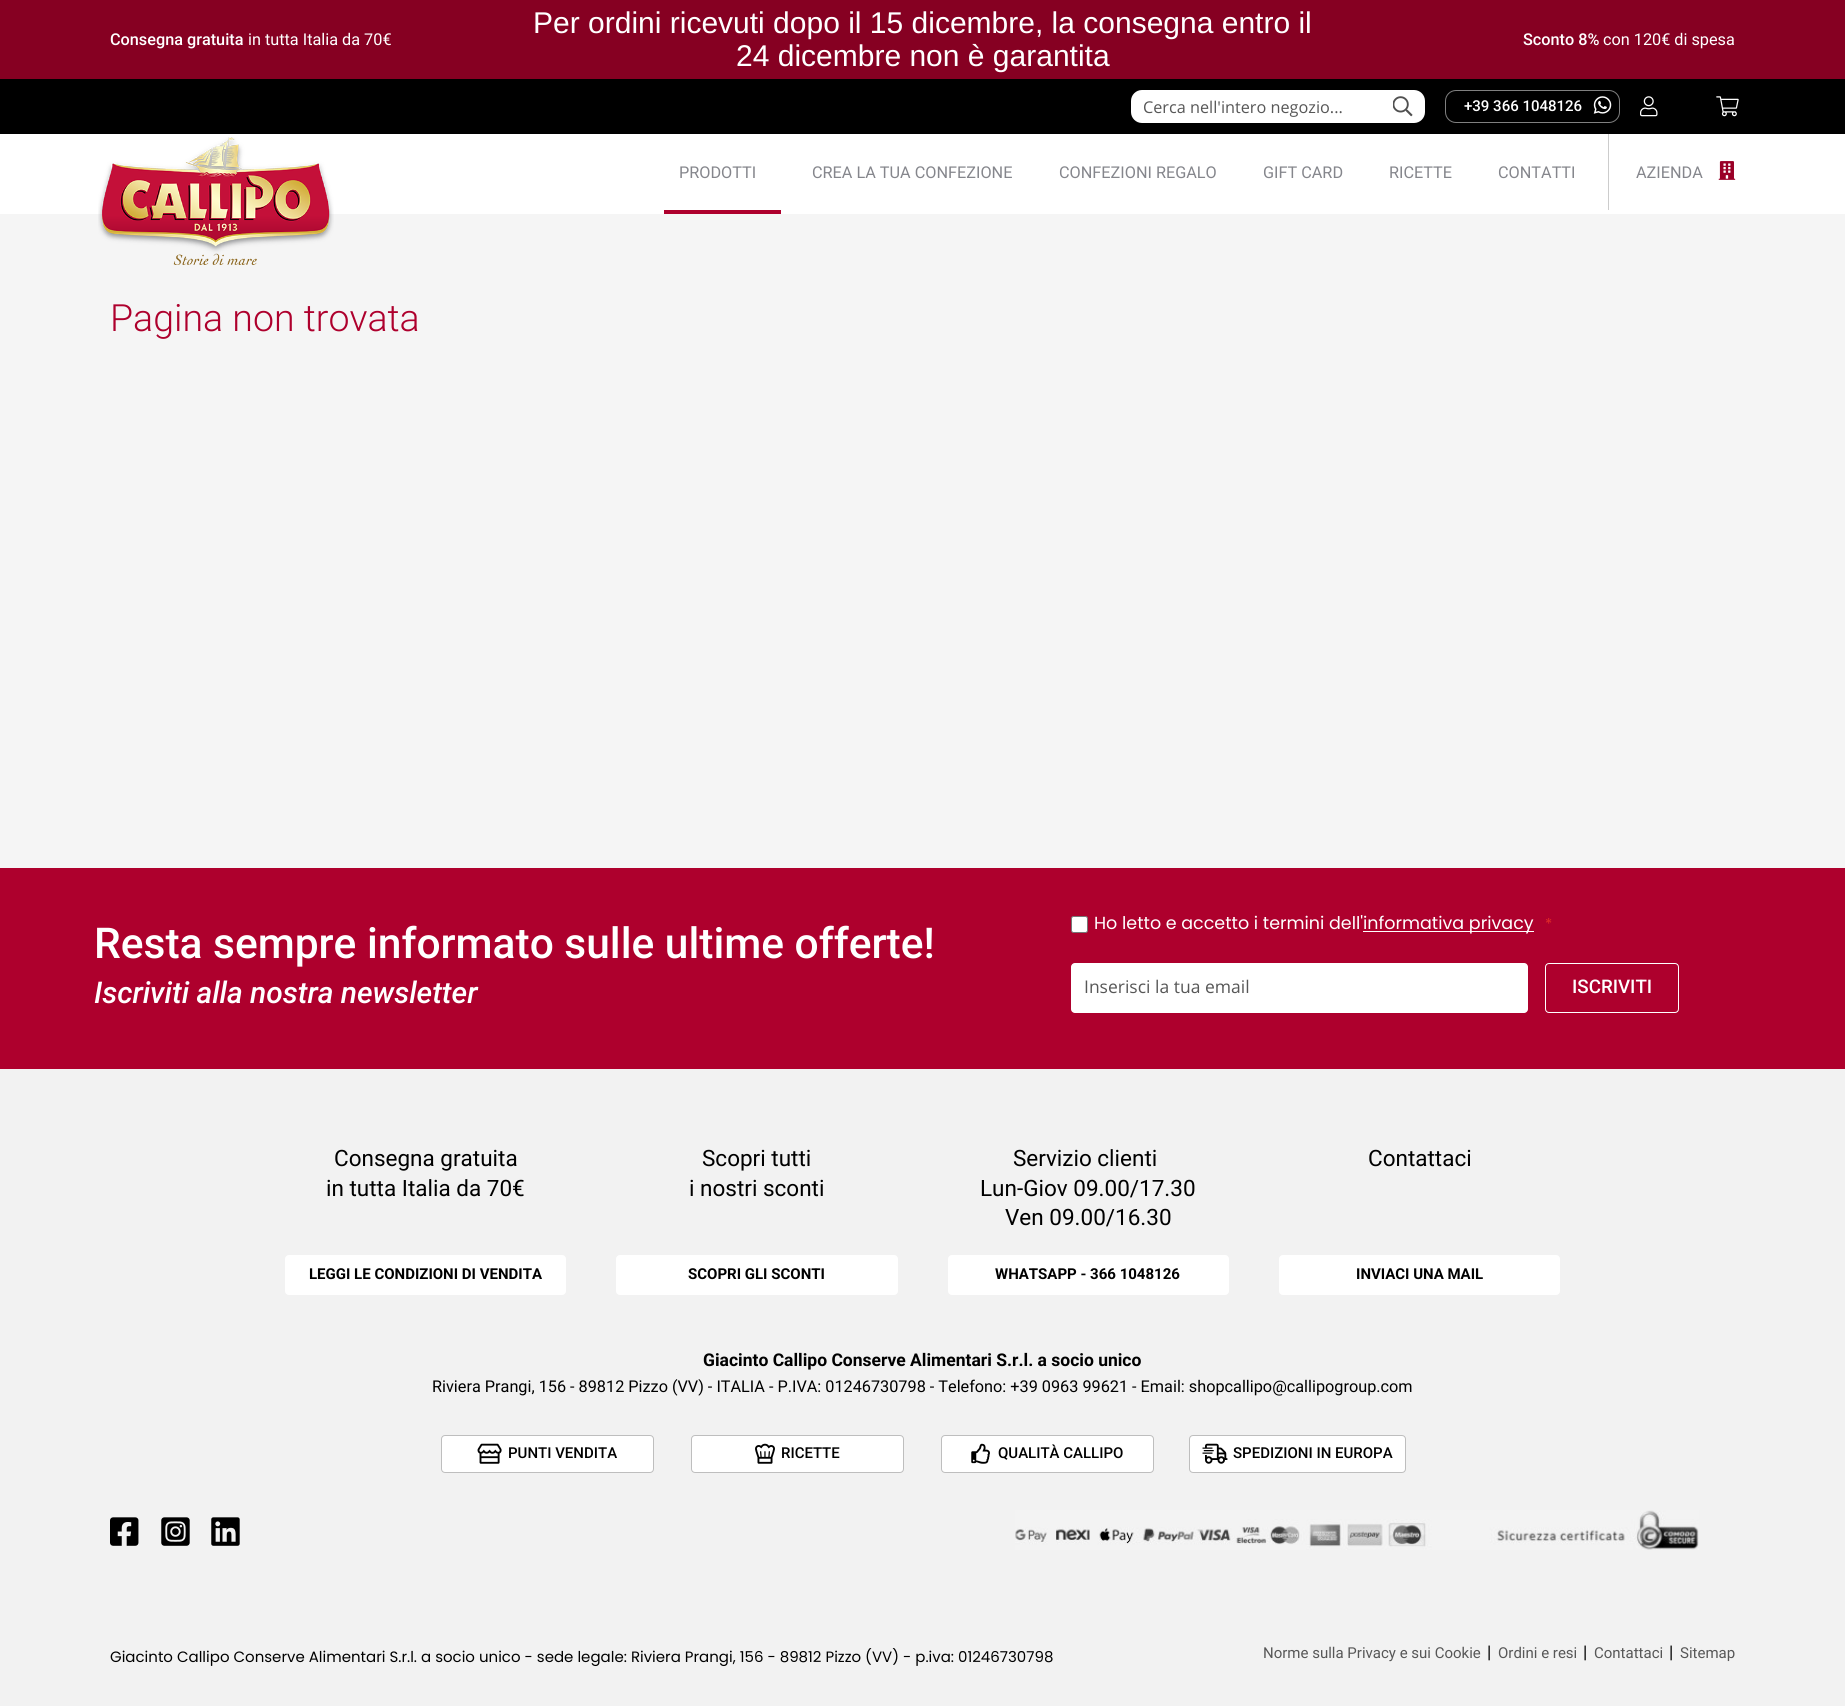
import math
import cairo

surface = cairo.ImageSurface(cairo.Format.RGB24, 1845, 1706)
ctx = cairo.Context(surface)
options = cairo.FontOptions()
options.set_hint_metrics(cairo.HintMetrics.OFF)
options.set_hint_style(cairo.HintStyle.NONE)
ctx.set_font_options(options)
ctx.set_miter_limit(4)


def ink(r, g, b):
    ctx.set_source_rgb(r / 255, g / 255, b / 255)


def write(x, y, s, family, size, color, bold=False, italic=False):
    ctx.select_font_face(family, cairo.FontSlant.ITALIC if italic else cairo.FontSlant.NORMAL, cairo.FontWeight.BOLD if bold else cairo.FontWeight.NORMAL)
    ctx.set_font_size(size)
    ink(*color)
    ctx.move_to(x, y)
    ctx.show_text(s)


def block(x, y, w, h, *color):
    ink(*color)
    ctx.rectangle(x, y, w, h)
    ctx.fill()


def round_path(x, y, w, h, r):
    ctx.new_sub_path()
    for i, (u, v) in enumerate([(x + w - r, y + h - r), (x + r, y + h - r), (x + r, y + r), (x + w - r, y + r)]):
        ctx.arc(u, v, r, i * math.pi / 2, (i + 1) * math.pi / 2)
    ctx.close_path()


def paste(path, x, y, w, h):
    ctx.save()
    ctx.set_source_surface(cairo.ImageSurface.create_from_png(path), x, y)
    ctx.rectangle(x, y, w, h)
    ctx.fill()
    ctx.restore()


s1 = dict(family="Roboto Medium", size=16.25, color=(255, 255, 255))
s2 = dict(family="Roboto", size=16.25, color=(255, 255, 255))
s3 = dict(family="Liberation Sans", size=30, color=(255, 255, 255))
s4 = dict(family="Open Sans", size=16.25, color=(87, 87, 87))
s5 = dict(family="Roboto Medium", size=15, color=(255, 255, 255))
s6 = dict(family="Roboto", size=16.25, color=(133, 134, 140))
s7 = dict(family="Roboto Light", size=37.5, color=(174, 0, 45))
s8 = dict(family="Roboto Medium", size=42.5, color=(255, 255, 255))
s9 = dict(family="Roboto Medium", size=30, color=(255, 255, 255), italic=True)
s10 = dict(family="Poppins", size=17.5, color=(255, 255, 255))
s11 = dict(family="Poppins", size=15, color=(224, 43, 39))
s12 = dict(family="Open Sans", size=17.5, color=(87, 87, 87))
s13 = dict(family="Roboto Medium", size=18.75, color=(255, 255, 255))
s14 = dict(family="Roboto", size=22.5, color=(0, 0, 0))
s15 = dict(family="Roboto", size=15, color=(0, 0, 0), bold=True)
s16 = dict(family="Roboto", size=17.5, color=(0, 0, 0), bold=True)
s17 = dict(family="Roboto", size=16.25, color=(0, 0, 0))
s18 = dict(family="Roboto Medium", size=15, color=(0, 0, 0))
s19 = dict(family="Poppins", size=15, color=(0, 0, 0))
s20 = dict(family="Roboto", size=15, color=(87, 87, 87))
s21 = dict(family="Roboto", size=17.5, color=(0, 0, 0))

ink(245, 245, 245)
ctx.paint()
block(0, 0, 1845, 79, 134, 0, 34)
write(110, 45, "Consegna gratuita", **s1)
write(248, 45, "in tutta Italia da 70€", **s2)
write(533, 33, "Per ordini ricevuti dopo il 15 dicembre, la consegna entro il", **s3)
write(736, 66, "24 dicembre non è garantita", **s3)
write(1523, 45, "Sconto 8%", **s1)
write(1603, 45, "con 120€ di spesa", **s2)
block(0, 79, 1845, 55, 0, 0, 0)
ink(255, 255, 255)
round_path(1131, 90, 294, 33, 11)
ctx.fill()
write(1143, 113, "Cerca nell'intero negozio...", **s4)
paste("pic1.png", 1393, 96, 20, 21)
round_path(1445.5, 90.5, 174, 32, 10.5)
ink(128, 128, 128)
ctx.set_line_width(1)
ctx.stroke()
write(1464, 111, "+39 366 1048126", **s5)
paste("pic2.png", 1593, 96, 19, 18)
paste("pic3.png", 1640, 96, 18, 21)
paste("pic4.png", 1716, 96, 23, 21)
block(0, 134, 1845, 80, 255, 255, 255)
paste("pic5.png", 98, 137, 236, 128)
block(664, 210, 117, 4, 174, 0, 45)
write(679, 178, "PRODOTTI", **s6)
write(812, 178, "CREA LA TUA CONFEZIONE", **s6)
write(1059, 178, "CONFEZIONI REGALO", **s6)
write(1263, 178, "GIFT CARD", **s6)
write(1389, 178, "RICETTE", **s6)
write(1498, 178, "CONTATTI", **s6)
block(1608, 134, 1, 76, 204, 204, 204)
write(1636, 178, "AZIENDA", **s6)
paste("pic6.png", 1718, 161, 18, 19)
write(110, 331, "Pagina non trovata", **s7)
block(0, 868, 1845, 201, 174, 0, 45)
write(94, 958, "Resta sempre informato sulle ultime offerte!", **s8)
write(94, 1003, "Iscriviti alla nostra newsletter", **s9)
round_path(1071.5, 916.5, 16, 16, 2)
ctx.fill_preserve()
ink(118, 118, 118)
ctx.stroke()
write(1094, 929, "Ho letto e accetto i termini dell'", **s10)
block(1363, 931, 171, 1, 255, 255, 255)
write(1363, 929, "informativa privacy", **s10)
write(1545, 929, "*", **s11)
ink(255, 255, 255)
round_path(1071, 963, 457, 50, 4)
ctx.fill()
write(1084, 993, "Inserisci la tua email", **s12)
round_path(1545.5, 963.5, 133, 49, 3.5)
ink(255, 255, 255)
ctx.stroke()
write(1572, 993, "ISCRIVITI", **s13)
block(0, 1069, 1845, 637, 242, 242, 242)
write(334, 1166, "Consegna gratuita", **s14)
write(326, 1196, "in tutta Italia da 70€", **s14)
ink(255, 255, 255)
round_path(285, 1255, 281, 40, 4)
ctx.fill()
write(309, 1279, "LEGGI LE CONDIZIONI DI VENDITA", **s15)
write(702, 1166, "Scopri tutti", **s14)
write(689, 1196, "i nostri sconti", **s14)
ink(255, 255, 255)
round_path(616, 1255, 282, 40, 4)
ctx.fill()
write(688, 1279, "SCOPRI GLI SCONTI", **s15)
write(1013, 1166, "Servizio clienti", **s14)
write(980, 1196, "Lun-Giov 09.00/17.30", **s14)
write(1005, 1225, "Ven 09.00/16.30", **s14)
ink(255, 255, 255)
round_path(948, 1255, 281, 40, 4)
ctx.fill()
write(995, 1279, "WHATSAPP - 366 1048126", **s15)
write(1368, 1166, "Contattaci", **s14)
ink(255, 255, 255)
round_path(1279, 1255, 281, 40, 4)
ctx.fill()
write(1356, 1279, "INVIACI UNA MAIL", **s15)
write(703, 1366, "Giacinto Callipo Conserve Alimentari S.r.l. a socio unico", **s16)
write(432, 1392, "Riviera Prangi, 156 - 89812 Pizzo (VV) - ITALIA - P.IVA: 01246730798 - Telefono: +39 0963 99621 - Email: shopcallipo@callipogroup.com", **s17)
ink(255, 255, 255)
round_path(441.5, 1435.5, 212, 37, 3.5)
ctx.fill_preserve()
ink(190, 190, 190)
ctx.stroke()
paste("pic7.png", 477, 1443, 25, 21)
write(508, 1458, "PUNTI VENDITA", **s18)
ink(255, 255, 255)
round_path(691.5, 1435.5, 212, 37, 3.5)
ctx.fill_preserve()
ink(190, 190, 190)
ctx.stroke()
paste("pic8.png", 755, 1443, 20, 21)
write(781, 1458, "RICETTE", **s18)
ink(255, 255, 255)
round_path(941.5, 1435.5, 212, 37, 3.5)
ctx.fill_preserve()
ink(190, 190, 190)
ctx.stroke()
paste("pic9.png", 971, 1443, 19, 21)
write(998, 1458, "QUALITÀ CALLIPO", **s18)
ink(255, 255, 255)
round_path(1189.5, 1435.5, 216, 37, 3.5)
ctx.fill_preserve()
ink(190, 190, 190)
ctx.stroke()
paste("pic10.png", 1202, 1443, 26, 21)
write(1233, 1458, "SPEDIZIONI IN EUROPA", **s18)
paste("pic11.png", 110, 1517, 29, 29)
paste("pic12.png", 161, 1517, 29, 29)
paste("pic13.png", 211, 1517, 29, 29)
paste("pic14.png", 1015, 1510, 684, 40)
write(110, 1662, "Giacinto Callipo Conserve Alimentari S.r.l. a socio unico - sede legale: Riviera Prangi, 156 - 89812 Pizzo (VV) - p.iva: 01246730798", **s19)
write(1263, 1658, "Norme sulla Privacy e sui Cookie", **s20)
write(1487, 1658, "|", **s21)
write(1498, 1658, "Ordini e resi", **s20)
write(1583, 1658, "|", **s21)
write(1594, 1658, "Contattaci", **s20)
write(1669, 1658, "|", **s21)
write(1680, 1658, "Sitemap", **s20)
surface.write_to_png("screenshot.png")
